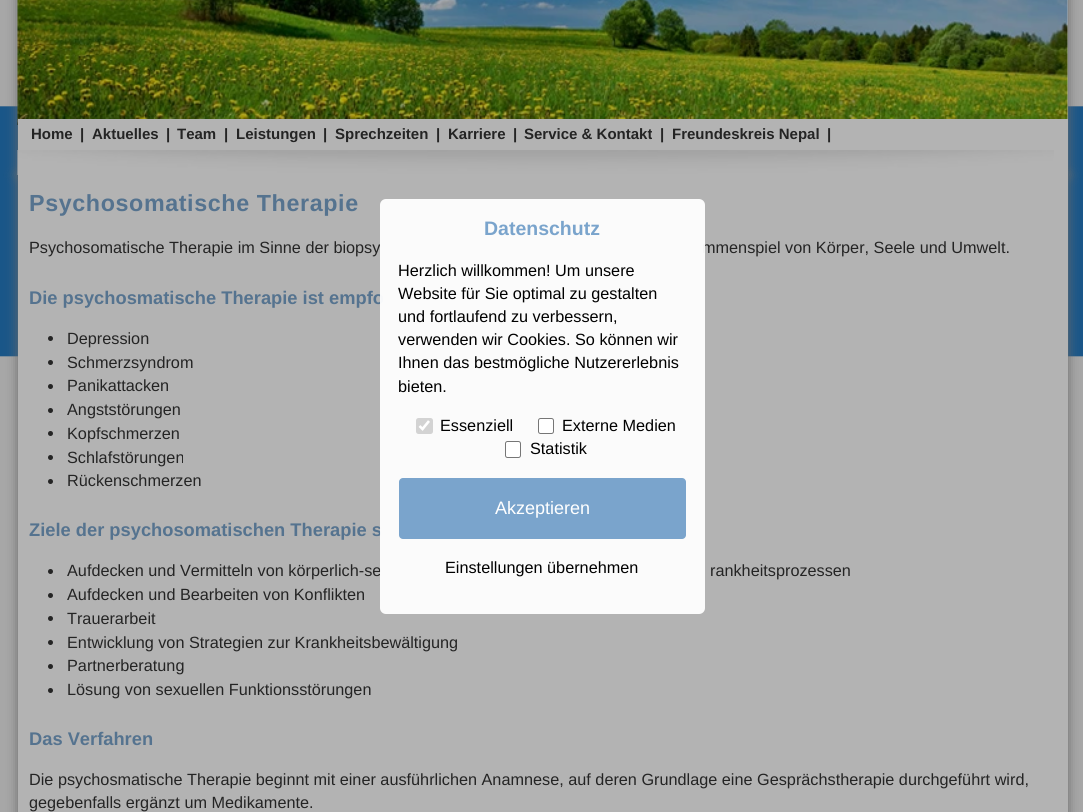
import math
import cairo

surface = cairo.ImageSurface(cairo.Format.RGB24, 1083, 812)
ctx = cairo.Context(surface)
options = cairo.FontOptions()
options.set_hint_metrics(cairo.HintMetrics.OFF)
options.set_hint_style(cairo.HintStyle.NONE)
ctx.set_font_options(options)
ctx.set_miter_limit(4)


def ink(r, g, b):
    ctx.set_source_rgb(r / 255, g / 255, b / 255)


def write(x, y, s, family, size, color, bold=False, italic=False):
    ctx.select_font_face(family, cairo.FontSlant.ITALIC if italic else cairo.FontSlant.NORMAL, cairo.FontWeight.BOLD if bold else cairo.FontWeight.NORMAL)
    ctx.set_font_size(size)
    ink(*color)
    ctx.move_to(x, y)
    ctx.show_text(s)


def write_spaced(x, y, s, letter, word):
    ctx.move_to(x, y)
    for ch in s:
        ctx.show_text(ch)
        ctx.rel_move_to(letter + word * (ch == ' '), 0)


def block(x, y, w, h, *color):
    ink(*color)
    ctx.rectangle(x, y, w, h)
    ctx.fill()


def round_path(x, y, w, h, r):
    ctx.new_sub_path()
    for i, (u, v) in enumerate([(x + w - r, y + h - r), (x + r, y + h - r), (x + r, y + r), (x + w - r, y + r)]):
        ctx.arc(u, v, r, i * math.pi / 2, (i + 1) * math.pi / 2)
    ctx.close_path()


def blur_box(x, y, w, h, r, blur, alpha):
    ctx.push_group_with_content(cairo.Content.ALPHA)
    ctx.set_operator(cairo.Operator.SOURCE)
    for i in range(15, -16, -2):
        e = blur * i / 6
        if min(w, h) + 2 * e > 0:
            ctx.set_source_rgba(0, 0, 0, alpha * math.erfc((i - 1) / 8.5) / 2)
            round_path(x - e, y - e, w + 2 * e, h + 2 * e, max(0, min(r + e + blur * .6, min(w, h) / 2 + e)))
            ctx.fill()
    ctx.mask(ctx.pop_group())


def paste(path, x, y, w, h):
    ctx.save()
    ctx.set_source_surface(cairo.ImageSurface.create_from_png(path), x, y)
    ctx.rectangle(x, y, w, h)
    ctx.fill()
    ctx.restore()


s1 = dict(family="Liberation Sans", size=15, color=(36, 36, 36), bold=True)
s2 = dict(family="Liberation Sans", size=16.25, color=(36, 36, 36))
s3 = dict(family="Liberation Sans", size=18.3, color=(85, 115, 143), bold=True)
s4 = dict(family="Liberation Sans", size=19.5, color=(122, 164, 204), bold=True)
s5 = dict(family="Liberation Sans", size=16.25, color=(0, 0, 0))
s6 = dict(family="Liberation Sans", size=18, color=(255, 255, 255))

ink(167, 167, 167)
ctx.paint()
paste("pic1.png", 0, 106, 1083, 251)
ink(107, 107, 107)
blur_box(18, -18, 1050, 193, 0, 6, 1)
blur_box(18, 175, 1050, 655, 0, 6, 1)
block(1054, 0, 14, 175, 179, 179, 179)
paste("pic2.png", 17, 0, 1051, 125)
block(18, 119, 1050, 31, 179, 179, 179)
write(31, 139, "Home", **s1)
write(80, 139, "|", **s1)
write(92, 139, "Aktuelles", **s1)
write(166, 139, "|", **s1)
write(177, 139, "Team", **s1)
write(224, 139, "|", **s1)
write(236, 139, "Leistungen", **s1)
write(323, 139, "|", **s1)
write(335, 139, "Sprechzeiten", **s1)
write(436, 139, "|", **s1)
write(448, 139, "Karriere", **s1)
write(513, 139, "|", **s1)
write(524, 139, "Service & Kontakt", **s1)
write(660, 139, "|", **s1)
write(672, 139, "Freundeskreis Nepal", **s1)
write(827, 139, "|", **s1)
paste("pic3.png", 17, 150, 1037, 25)
block(18, 175, 1050, 637, 179, 179, 179)
ctx.set_font_size(23.3)
ink(85, 115, 143)
write_spaced(29, 211, "Psychosomatische Therapie", 0.6, 0)
write(29, 253, "Psychosomatische Therapie im Sinne der biopsy", **s2)
write(702, 253, "mmenspiel von Körper, Seele und Umwelt.", **s2)
write(29, 304, "Die psychosmatische Therapie ist empfo", **s3)
ink(36, 36, 36)
ctx.new_path()
ctx.arc(50.5, 338.5, 2.5, 0, 2 * math.pi)
ctx.fill()
write(67, 344, "Depression", **s2)
ctx.new_path()
ctx.arc(50.5, 362.5, 2.5, 0, 2 * math.pi)
ctx.fill()
write(67, 368, "Schmerzsyndrom", **s2)
ctx.new_path()
ctx.arc(50.5, 386.5, 2.5, 0, 2 * math.pi)
ctx.fill()
write(67, 391, "Panikattacken", **s2)
ctx.new_path()
ctx.arc(50.5, 410.5, 2.5, 0, 2 * math.pi)
ctx.fill()
write(67, 415, "Angststörungen", **s2)
ctx.new_path()
ctx.arc(50.5, 433.5, 2.5, 0, 2 * math.pi)
ctx.fill()
write(67, 439, "Kopfschmerzen", **s2)
ctx.new_path()
ctx.arc(50.5, 457.5, 2.5, 0, 2 * math.pi)
ctx.fill()
write(67, 463, "Schlafstörungen", **s2)
ctx.new_path()
ctx.arc(50.5, 481.5, 2.5, 0, 2 * math.pi)
ctx.fill()
write(67, 486, "Rückenschmerzen", **s2)
write(29, 536, "Ziele der psychosomatischen Therapie s", **s3)
ink(36, 36, 36)
ctx.new_path()
ctx.arc(50.5, 571.5, 2.5, 0, 2 * math.pi)
ctx.fill()
write(67, 576, "Aufdecken und Vermitteln von körperlich-se", **s2)
write(710, 576, "rankheitsprozessen", **s2)
ctx.new_path()
ctx.arc(50.5, 595.5, 2.5, 0, 2 * math.pi)
ctx.fill()
write(67, 600, "Aufdecken und Bearbeiten von Konflikten", **s2)
ctx.new_path()
ctx.arc(50.5, 618.5, 2.5, 0, 2 * math.pi)
ctx.fill()
write(67, 624, "Trauerarbeit", **s2)
ctx.new_path()
ctx.arc(50.5, 642.5, 2.5, 0, 2 * math.pi)
ctx.fill()
write(67, 648, "Entwicklung von Strategien zur Krankheitsbewältigung", **s2)
ctx.new_path()
ctx.arc(50.5, 666.5, 2.5, 0, 2 * math.pi)
ctx.fill()
write(67, 671, "Partnerberatung", **s2)
ctx.new_path()
ctx.arc(50.5, 690.5, 2.5, 0, 2 * math.pi)
ctx.fill()
write(67, 695, "Lösung von sexuellen Funktionsstörungen", **s2)
write(29, 745, "Das Verfahren", **s3)
write(29, 785, "Die psychosmatische Therapie beginnt mit einer ausführlichen Anamnese, auf deren Grundlage eine Gesprächstherapie durchgeführt wird,", **s2)
write(29, 808, "gegebenfalls ergänzt um Medikamente.", **s2)
ctx.set_source_rgba(1, 1, 1, 0.95)
round_path(380, 199, 325, 415, 6)
ctx.fill()
write(484, 235, "Datenschutz", **s4)
write(398, 276, "Herzlich willkommen! Um unsere", **s5)
write(398, 299, "Website für Sie optimal zu gestalten", **s5)
write(398, 322, "und fortlaufend zu verbessern,", **s5)
write(398, 345, "verwenden wir Cookies. So können wir", **s5)
write(398, 368, "Ihnen das bestmögliche Nutzererlebnis", **s5)
write(398, 392, "bieten.", **s5)
ink(211, 211, 211)
round_path(416, 418, 17, 16, 2.5)
ctx.fill()
ctx.new_path()
ctx.move_to(419.5, 426)
ctx.line_to(422.5, 429)
ctx.line_to(429, 421)
ink(255, 255, 255)
ctx.set_line_width(2.6)
ctx.stroke()
write(440, 431, "Essenziell", **s5)
ink(255, 255, 255)
round_path(538.5, 418.5, 15, 15, 2)
ctx.fill_preserve()
ink(118, 118, 118)
ctx.set_line_width(1)
ctx.stroke()
write(562, 431, "Externe Medien", **s5)
ink(255, 255, 255)
round_path(505.5, 441.5, 15, 16, 2)
ctx.fill_preserve()
ink(118, 118, 118)
ctx.stroke()
write(530, 454, "Statistik", **s5)
ink(122, 164, 204)
round_path(399, 478, 287, 61, 4)
ctx.fill()
write(495, 514, "Akzeptieren", **s6)
write(445, 573, "Einstellungen übernehmen", **s5)
surface.write_to_png("screenshot.png")
